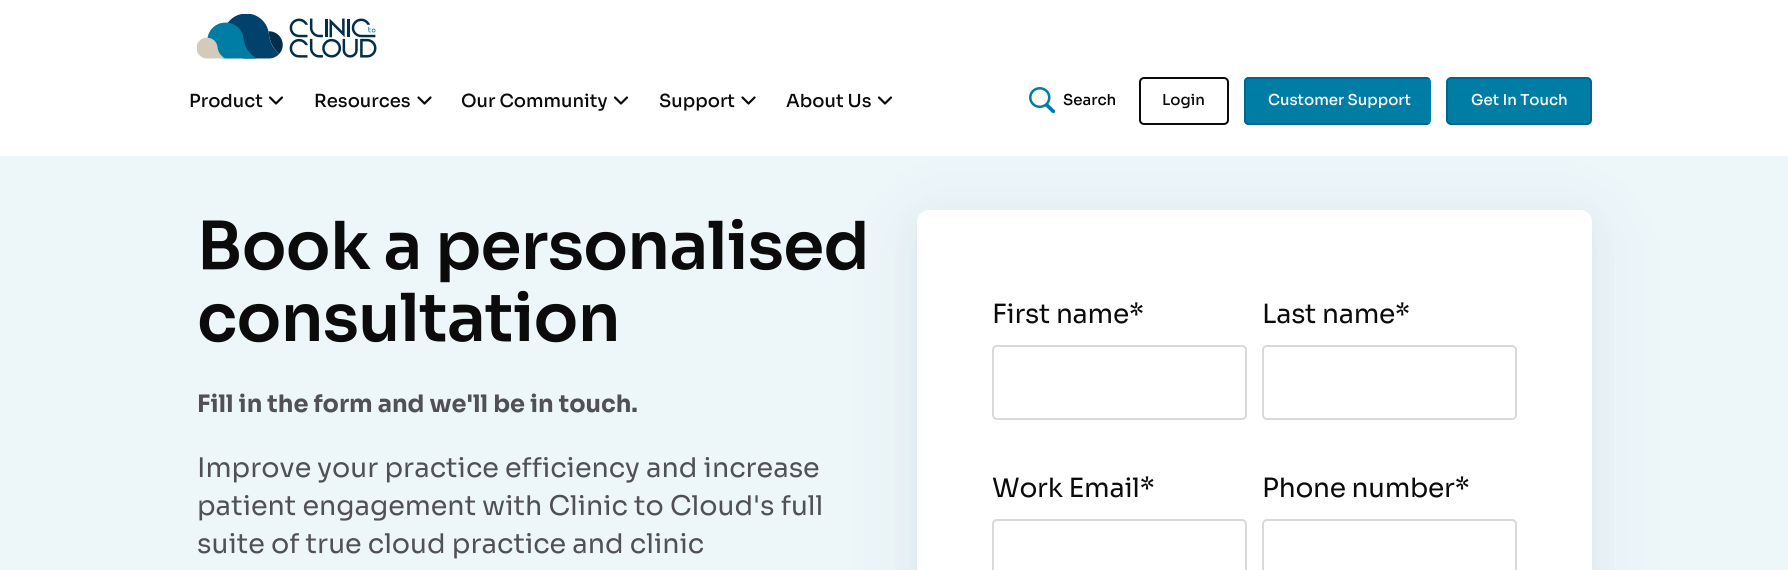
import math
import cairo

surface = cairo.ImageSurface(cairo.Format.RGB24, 1788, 570)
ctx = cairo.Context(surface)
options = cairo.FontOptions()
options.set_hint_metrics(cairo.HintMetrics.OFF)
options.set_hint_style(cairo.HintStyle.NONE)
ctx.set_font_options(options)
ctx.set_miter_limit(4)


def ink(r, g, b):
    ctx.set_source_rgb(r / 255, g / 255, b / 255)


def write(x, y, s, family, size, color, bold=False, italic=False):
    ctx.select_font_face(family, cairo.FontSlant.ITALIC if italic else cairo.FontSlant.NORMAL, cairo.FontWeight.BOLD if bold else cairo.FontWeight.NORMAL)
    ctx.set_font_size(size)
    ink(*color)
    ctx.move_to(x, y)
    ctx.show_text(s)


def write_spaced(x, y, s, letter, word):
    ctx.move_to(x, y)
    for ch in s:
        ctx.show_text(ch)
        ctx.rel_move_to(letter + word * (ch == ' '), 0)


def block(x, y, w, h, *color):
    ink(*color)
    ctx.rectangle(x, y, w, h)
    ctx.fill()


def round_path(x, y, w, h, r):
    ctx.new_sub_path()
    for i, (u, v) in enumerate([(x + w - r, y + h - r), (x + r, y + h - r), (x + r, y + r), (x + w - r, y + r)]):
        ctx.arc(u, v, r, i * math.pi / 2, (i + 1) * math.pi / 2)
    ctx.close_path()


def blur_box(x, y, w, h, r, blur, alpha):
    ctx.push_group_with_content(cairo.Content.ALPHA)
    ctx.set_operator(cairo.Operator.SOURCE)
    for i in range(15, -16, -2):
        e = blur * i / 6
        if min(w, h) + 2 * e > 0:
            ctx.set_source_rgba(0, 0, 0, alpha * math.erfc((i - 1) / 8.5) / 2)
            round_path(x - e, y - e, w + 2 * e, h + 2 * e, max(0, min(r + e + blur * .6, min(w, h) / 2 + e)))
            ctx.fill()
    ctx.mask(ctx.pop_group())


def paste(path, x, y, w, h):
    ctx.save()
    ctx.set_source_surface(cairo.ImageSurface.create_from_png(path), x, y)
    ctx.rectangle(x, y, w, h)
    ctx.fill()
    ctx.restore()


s1 = dict(family="Sora Medium", size=18, color=(11, 11, 12))
s2 = dict(family="Sora Medium", size=15, color=(0, 0, 0))
s3 = dict(family="Sora Medium", size=15, color=(11, 11, 12))
s4 = dict(family="Sora Medium", size=15, color=(255, 255, 255))
s5 = dict(family="Sora", size=24, color=(80, 80, 85), bold=True)
s6 = dict(family="Sora", size=27, color=(80, 80, 85))

ink(237, 246, 249)
ctx.paint()
ink(2, 46, 74)
blur_box(917, 225, 675, 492, 12, 45, 0.05)
block(0, 0, 1788, 156, 255, 255, 255)
paste("pic1.png", 197, 14, 180, 45)
write(189, 107, "Product", **s1)
ctx.new_path()
ctx.move_to(270, 97.5)
ctx.line_to(276, 103.5)
ctx.line_to(282, 97.5)
ctx.set_line_width(2.2)
ctx.set_line_cap(cairo.LineCap.ROUND)
ctx.set_line_join(cairo.LineJoin.ROUND)
ctx.stroke()
write(314, 107, "Resources", **s1)
ctx.new_path()
ctx.move_to(418.5, 97.5)
ctx.line_to(424.5, 103.5)
ctx.line_to(430.5, 97.5)
ctx.stroke()
write(461, 107, "Our Community", **s1)
ctx.new_path()
ctx.move_to(615, 97.5)
ctx.line_to(621, 103.5)
ctx.line_to(627, 97.5)
ctx.stroke()
write(659, 107, "Support", **s1)
ctx.new_path()
ctx.move_to(742.5, 97.5)
ctx.line_to(748.5, 103.5)
ctx.line_to(754.5, 97.5)
ctx.stroke()
write(786, 107, "About Us", **s1)
ctx.new_path()
ctx.move_to(879, 97.5)
ctx.line_to(885, 103.5)
ctx.line_to(891, 97.5)
ctx.stroke()
paste("pic2.png", 1029, 87, 27, 27)
write(1063, 105, "Search", **s2)
round_path(1140, 78, 88, 46, 4)
ink(11, 11, 12)
ctx.set_line_width(2)
ctx.set_line_cap(cairo.LineCap.BUTT)
ctx.set_line_join(cairo.LineJoin.MITER)
ctx.stroke()
write(1162, 105, "Login", **s3)
ink(0, 125, 165)
round_path(1244, 77, 187, 48, 5)
ctx.fill()
ink(0, 100, 139)
ctx.new_path()
ctx.move_to(1249, 77)
ctx.curve_to(1246, 77, 1244, 79, 1244, 82)
ctx.line_to(1244, 120)
ctx.curve_to(1244, 123, 1246, 125, 1249, 125)
ctx.line_to(1426, 125)
ctx.curve_to(1428, 125, 1429, 124, 1430, 123)
ctx.line_to(1249, 123)
ctx.curve_to(1247, 123, 1246, 122, 1246, 120)
ctx.line_to(1246, 82)
ctx.curve_to(1246, 80, 1247, 79, 1249, 79)
ctx.line_to(1430, 79)
ctx.curve_to(1429, 78, 1428, 77, 1426, 77)
ctx.close_path()
ctx.fill()
write(1268, 105, "Customer Support", **s4)
ink(0, 125, 165)
round_path(1447, 78, 144, 46, 4)
ctx.fill_preserve()
ink(0, 100, 139)
ctx.stroke()
write(1471, 105, "Get In Touch", **s4)
ctx.select_font_face("Sora SemiBold")
ctx.set_font_size(66)
ink(11, 11, 12)
write_spaced(197, 269, "Book a personalised", -0.7, 0)
write_spaced(197, 341, "consultation", -0.7, 0)
write(197, 412, "Fill in the form and we'll be in touch.", **s5)
write(197, 477, "Improve your practice efficiency and increase", **s6)
write(197, 515, "patient engagement with Clinic to Cloud's full", **s6)
write(197, 553, "suite of true cloud practice and clinic", **s6)
ink(2, 46, 74)
blur_box(917, 218, 675, 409, 12, 15, 0.05)
ink(255, 255, 255)
round_path(917, 210, 675, 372, 12)
ctx.fill()
ctx.set_font_size(26.5)
ink(11, 11, 12)
write_spaced(992, 323, "First name*", -0.25, 0)
round_path(993, 346, 253, 73, 4)
ink(217, 217, 217)
ctx.stroke()
ink(11, 11, 12)
write_spaced(1262, 323, "Last name*", -0.25, 0)
round_path(1263, 346, 253, 73, 4)
ink(217, 217, 217)
ctx.stroke()
ink(11, 11, 12)
write_spaced(992, 497, "Work Email*", -0.25, 0)
round_path(993, 520, 253, 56, 4)
ink(217, 217, 217)
ctx.stroke()
ink(11, 11, 12)
write_spaced(1262, 497, "Phone number*", -0.25, 0)
round_path(1263, 520, 253, 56, 4)
ink(217, 217, 217)
ctx.stroke()
surface.write_to_png("screenshot.png")
